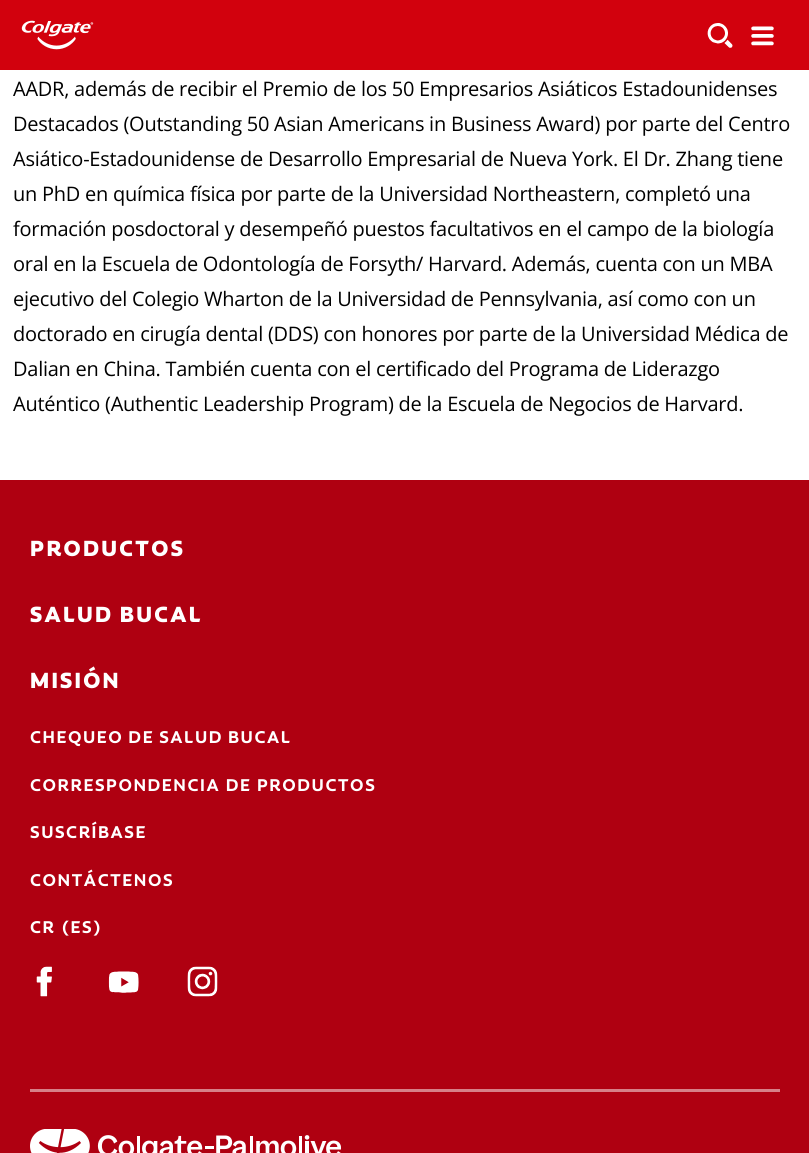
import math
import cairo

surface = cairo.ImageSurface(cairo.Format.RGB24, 809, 1153)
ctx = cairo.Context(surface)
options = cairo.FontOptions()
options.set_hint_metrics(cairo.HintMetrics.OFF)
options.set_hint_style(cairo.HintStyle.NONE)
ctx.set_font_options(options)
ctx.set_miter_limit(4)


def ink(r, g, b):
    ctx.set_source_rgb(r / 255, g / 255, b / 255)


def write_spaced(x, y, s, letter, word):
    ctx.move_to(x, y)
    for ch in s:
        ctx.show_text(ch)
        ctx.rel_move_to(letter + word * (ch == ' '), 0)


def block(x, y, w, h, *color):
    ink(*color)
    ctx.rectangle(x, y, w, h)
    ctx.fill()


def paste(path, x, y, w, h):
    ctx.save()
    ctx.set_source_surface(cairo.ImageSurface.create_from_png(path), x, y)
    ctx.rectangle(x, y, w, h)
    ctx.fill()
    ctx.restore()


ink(255, 255, 255)
ctx.paint()
block(0, 0, 809, 70, 210, 1, 13)
paste("pic1.png", 21, 20, 73, 30)
paste("pic2.png", 707, 23, 26, 25)
paste("pic3.png", 751, 26, 23, 20)
ctx.select_font_face("Open Sans")
ctx.set_font_size(20)
ink(0, 0, 0)
write_spaced(13, 96, "AADR, además de recibir el Premio de los 50 Empresarios Asiáticos Estadounidenses", -0.25, 0)
write_spaced(13, 131, "Destacados (Outstanding 50 Asian Americans in Business Award) por parte del Centro", -0.25, 0)
write_spaced(13, 166, "Asiático-Estadounidense de Desarrollo Empresarial de Nueva York. El Dr. Zhang tiene", -0.25, 0)
write_spaced(13, 201, "un PhD en química física por parte de la Universidad Northeastern, completó una", -0.25, 0)
write_spaced(13, 236, "formación posdoctoral y desempeñó puestos facultativos en el campo de la biología", -0.25, 0)
write_spaced(13, 271, "oral en la Escuela de Odontología de Forsyth/ Harvard. Además, cuenta con un MBA", -0.25, 0)
write_spaced(13, 306, "ejecutivo del Colegio Wharton de la Universidad de Pennsylvania, así como con un", -0.25, 0)
write_spaced(13, 341, "doctorado en cirugía dental (DDS) con honores por parte de la Universidad Médica de", -0.25, 0)
write_spaced(13, 376, "Dalian en China. También cuenta con el certificado del Programa de Liderazgo", -0.25, 0)
write_spaced(13, 411, "Auténtico (Authentic Leadership Program) de la Escuela de Negocios de Harvard.", -0.25, 0)
block(0, 480, 809, 673, 175, 0, 17)
ctx.select_font_face("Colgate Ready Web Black")
ctx.set_font_size(22.5)
ink(255, 255, 255)
write_spaced(30, 556, "PRODUCTOS", 2.25, 0)
write_spaced(30, 622, "SALUD BUCAL", 2.25, -1)
write_spaced(30, 688, "MISIÓN", 2.25, 0)
ctx.select_font_face("Colgate Ready Web", cairo.FontSlant.NORMAL, cairo.FontWeight.BOLD)
ctx.set_font_size(17.5)
write_spaced(30, 743, "CHEQUEO DE SALUD BUCAL", 1.55, -0.5)
write_spaced(30, 791, "CORRESPONDENCIA DE PRODUCTOS", 1.55, 0)
write_spaced(30, 838, "SUSCRÍBASE", 1.55, 0)
write_spaced(30, 886, "CONTÁCTENOS", 1.55, 0)
write_spaced(30, 933, "CR (ES)", 1.55, 1)
paste("pic4.png", 36, 966, 16, 31)
paste("pic5.png", 108, 971, 31, 22)
paste("pic6.png", 187, 966, 31, 31)
block(30, 1089, 750, 3, 215, 128, 136)
paste("pic7.png", 30, 1129, 311, 24)
surface.write_to_png("screenshot.png")
